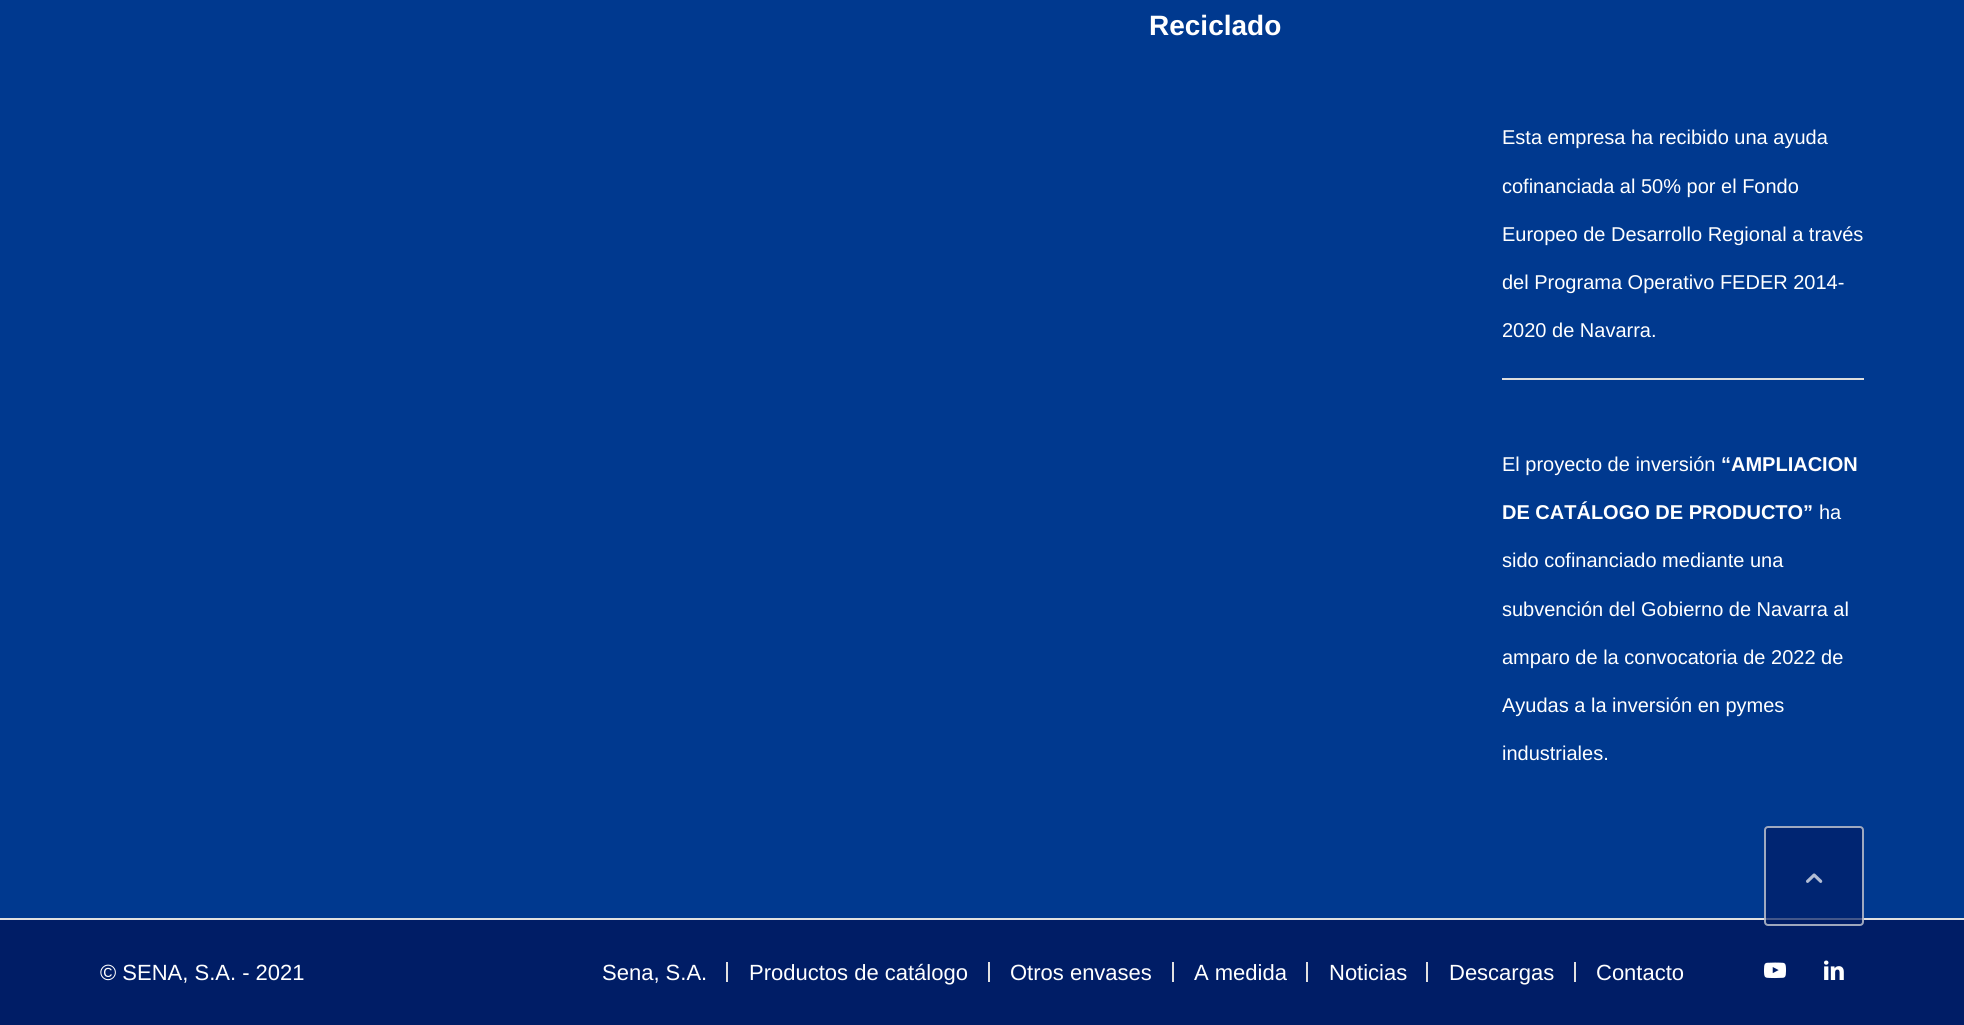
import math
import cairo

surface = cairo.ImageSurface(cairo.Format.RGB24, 1964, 1025)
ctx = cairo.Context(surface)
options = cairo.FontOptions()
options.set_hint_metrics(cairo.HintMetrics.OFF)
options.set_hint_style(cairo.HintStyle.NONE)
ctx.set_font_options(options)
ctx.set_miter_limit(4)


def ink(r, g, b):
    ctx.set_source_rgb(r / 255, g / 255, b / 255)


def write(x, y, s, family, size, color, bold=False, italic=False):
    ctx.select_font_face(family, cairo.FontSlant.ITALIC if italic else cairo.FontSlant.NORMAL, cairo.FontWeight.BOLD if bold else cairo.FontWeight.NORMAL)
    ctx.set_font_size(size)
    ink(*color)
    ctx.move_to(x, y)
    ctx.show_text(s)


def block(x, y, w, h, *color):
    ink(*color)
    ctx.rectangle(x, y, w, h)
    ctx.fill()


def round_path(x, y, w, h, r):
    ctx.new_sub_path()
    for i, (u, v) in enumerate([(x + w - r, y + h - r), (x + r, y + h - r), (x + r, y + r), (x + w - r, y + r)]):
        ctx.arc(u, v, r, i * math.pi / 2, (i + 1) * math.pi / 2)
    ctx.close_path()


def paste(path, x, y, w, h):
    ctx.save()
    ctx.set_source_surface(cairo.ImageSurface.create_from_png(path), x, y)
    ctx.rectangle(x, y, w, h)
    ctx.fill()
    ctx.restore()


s1 = dict(family="Liberation Sans", size=28, color=(255, 255, 255), bold=True)
s2 = dict(family="Liberation Sans", size=20, color=(255, 255, 255))
s3 = dict(family="Liberation Sans", size=20, color=(255, 255, 255), bold=True)
s4 = dict(family="Liberation Sans", size=22, color=(255, 255, 255))

ink(0, 57, 143)
ctx.paint()
write(1149, 35, "Reciclado", **s1)
write(1502, 144, "Esta empresa ha recibido una ayuda", **s2)
write(1502, 193, "cofinanciada al 50% por el Fondo", **s2)
write(1502, 241, "Europeo de Desarrollo Regional a través", **s2)
write(1502, 289, "del Programa Operativo FEDER 2014-", **s2)
write(1502, 337, "2020 de Navarra.", **s2)
block(1502, 378, 362, 2, 221, 221, 221)
write(1502, 471, "El proyecto de inversión", **s2)
write(1721, 471, "“AMPLIACION", **s3)
write(1502, 519, "DE CATÁLOGO DE PRODUCTO”", **s3)
write(1819, 519, "ha", **s2)
write(1502, 567, "sido cofinanciado mediante una", **s2)
write(1502, 616, "subvención del Gobierno de Navarra al", **s2)
write(1502, 664, "amparo de la convocatoria de 2022 de", **s2)
write(1502, 712, "Ayudas a la inversión en pymes", **s2)
write(1502, 760, "industriales.", **s2)
block(0, 920, 1964, 105, 0, 29, 102)
block(0, 918, 1964, 2, 225, 225, 225)
write(100, 980, "© SENA, S.A. - 2021", **s4)
write(602, 980, "Sena, S.A.", **s4)
block(726, 962, 2, 20, 225, 225, 225)
write(749, 980, "Productos de catálogo", **s4)
block(988, 962, 2, 20, 225, 225, 225)
write(1010, 980, "Otros envases", **s4)
block(1172, 962, 2, 20, 225, 225, 225)
write(1194, 980, "A medida", **s4)
block(1306, 962, 2, 20, 225, 225, 225)
write(1329, 980, "Noticias", **s4)
block(1426, 962, 2, 20, 225, 225, 225)
write(1449, 980, "Descargas", **s4)
block(1574, 962, 2, 20, 225, 225, 225)
write(1596, 980, "Contacto", **s4)
paste("pic1.png", 1764, 962, 22, 17)
paste("pic2.png", 1824, 960, 20, 20)
ctx.set_source_rgba(0, 0.114, 0.4, 0.7)
round_path(1764, 826, 100, 100, 4)
ctx.fill()
round_path(1765, 827, 98, 98, 3)
ctx.set_source_rgba(0.882, 0.882, 0.882, 0.7)
ctx.stroke()
paste("pic3.png", 1806, 873, 17, 10)
surface.write_to_png("screenshot.png")
